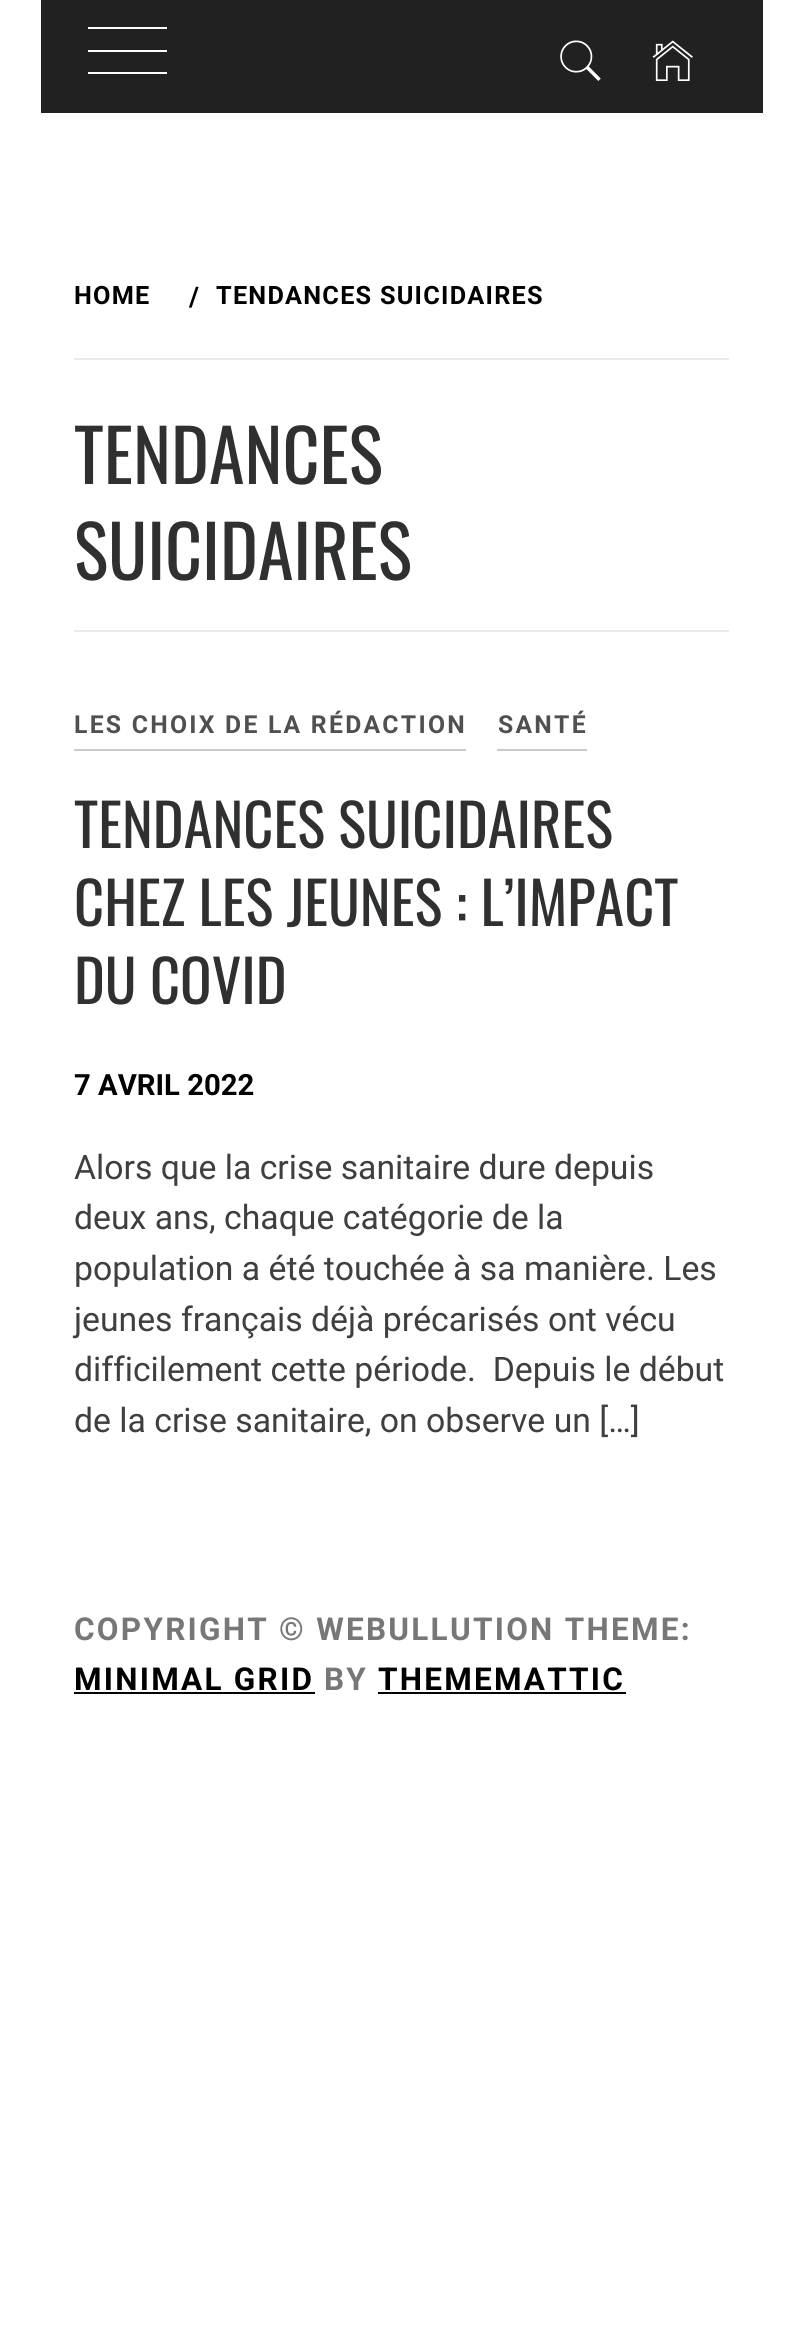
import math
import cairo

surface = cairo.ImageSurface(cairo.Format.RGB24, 802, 2325)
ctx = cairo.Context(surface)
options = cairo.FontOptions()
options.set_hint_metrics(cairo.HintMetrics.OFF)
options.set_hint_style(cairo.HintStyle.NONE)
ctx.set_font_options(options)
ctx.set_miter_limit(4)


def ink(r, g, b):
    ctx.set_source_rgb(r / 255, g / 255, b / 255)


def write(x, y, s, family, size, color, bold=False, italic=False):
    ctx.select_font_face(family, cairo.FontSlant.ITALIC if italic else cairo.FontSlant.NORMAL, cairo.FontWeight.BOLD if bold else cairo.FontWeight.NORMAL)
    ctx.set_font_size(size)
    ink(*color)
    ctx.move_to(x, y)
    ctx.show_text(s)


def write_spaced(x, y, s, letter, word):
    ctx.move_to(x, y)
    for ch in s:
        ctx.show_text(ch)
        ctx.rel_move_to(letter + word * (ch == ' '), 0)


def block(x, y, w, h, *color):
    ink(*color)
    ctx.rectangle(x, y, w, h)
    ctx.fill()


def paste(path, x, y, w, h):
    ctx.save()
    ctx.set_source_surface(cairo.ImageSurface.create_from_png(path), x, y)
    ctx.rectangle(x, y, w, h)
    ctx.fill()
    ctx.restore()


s1 = dict(family="Oswald", size=72, color=(47, 49, 49))
s2 = dict(family="Oswald", size=58.5, color=(47, 49, 49))
s3 = dict(family="Roboto", size=29.25, color=(0, 0, 0), bold=True)
s4 = dict(family="Roboto", size=33.75, color=(62, 63, 64))

ink(255, 255, 255)
ctx.paint()
block(41, 0, 722, 113, 33, 33, 33)
block(88, 27, 79, 2, 255, 255, 255)
block(88, 50, 79, 2, 255, 255, 255)
block(88, 72, 79, 2, 255, 255, 255)
paste("pic1.png", 560, 40, 41, 41)
paste("pic2.png", 652, 40, 41, 41)
block(74, 630, 655, 2, 234, 234, 234)
block(74, 358, 655, 2, 234, 234, 234)
ctx.select_font_face("Roboto", cairo.FontSlant.NORMAL, cairo.FontWeight.BOLD)
ctx.set_font_size(25.25)
ink(0, 0, 0)
write_spaced(74, 304, "HOME", 1.25, 0)
ctx.set_font_size(27)
write_spaced(189, 306, "/", 1.25, 0)
ctx.set_font_size(25.25)
write_spaced(216, 304, "TENDANCES SUICIDAIRES", 1.25, 0)
write(74, 484, "TENDANCES", **s1)
write(74, 580, "SUICIDAIRES", **s1)
block(74, 749, 392, 2, 202, 202, 202)
ctx.select_font_face("Roboto", cairo.FontSlant.NORMAL, cairo.FontWeight.BOLD)
ctx.set_font_size(24.75)
ink(80, 80, 80)
write_spaced(74, 733, "LES CHOIX DE LA RÉDACTION", 2.25, 0)
block(497, 749, 90, 2, 202, 202, 202)
ink(80, 80, 80)
write_spaced(498, 733, "SANTÉ", 2.25, 0)
write(74, 848, "TENDANCES SUICIDAIRES", **s2)
write(74, 926, "CHEZ LES JEUNES : L’IMPACT", **s2)
write(74, 1004, "DU COVID", **s2)
write(74, 1095, "7 AVRIL 2022", **s3)
write(74, 1179, "Alors que la crise sanitaire dure depuis", **s4)
write(74, 1229, "deux ans, chaque catégorie de la", **s4)
write(74, 1280, "population a été touchée à sa manière. Les", **s4)
write(74, 1331, "jeunes français déjà précarisés ont vécu", **s4)
write(74, 1381, "difficilement cette période.  Depuis le début", **s4)
write(74, 1432, "de la crise sanitaire, on observe un […]", **s4)
ctx.select_font_face("Roboto", cairo.FontSlant.NORMAL, cairo.FontWeight.BOLD)
ctx.set_font_size(31.5)
ink(119, 119, 119)
write_spaced(74, 1640, "COPYRIGHT © WEBULLUTION THEME:", 2.25, 0)
ink(0, 0, 0)
write_spaced(74, 1690, "MINIMAL GRID", 2.25, 0)
block(74, 1692, 241, 2, 0, 0, 0)
ink(119, 119, 119)
write_spaced(324, 1690, "BY", 2.25, 0)
ink(0, 0, 0)
write_spaced(378, 1690, "THEMEMATTIC", 2.25, 0)
block(378, 1692, 248, 2, 0, 0, 0)
surface.write_to_png("screenshot.png")
